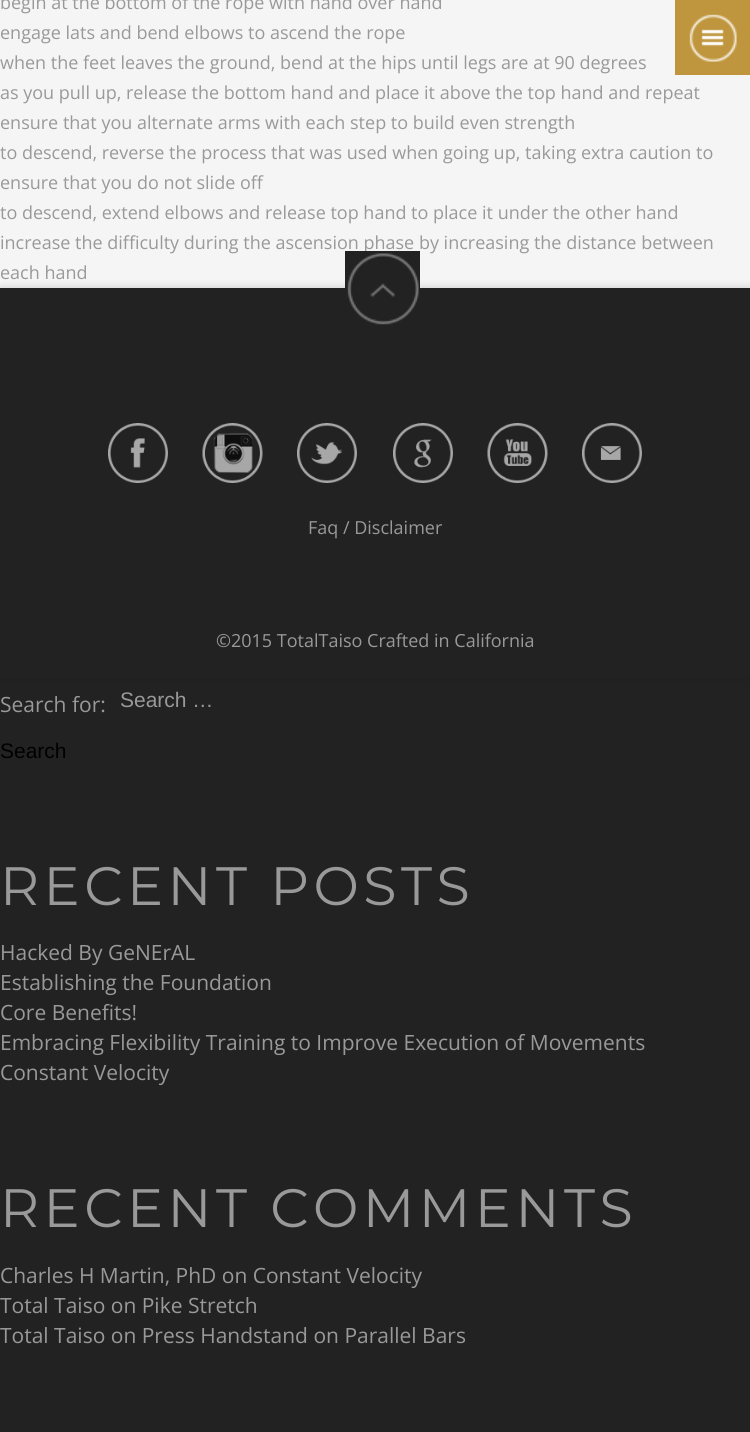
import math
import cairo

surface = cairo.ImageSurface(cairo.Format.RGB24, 750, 1432)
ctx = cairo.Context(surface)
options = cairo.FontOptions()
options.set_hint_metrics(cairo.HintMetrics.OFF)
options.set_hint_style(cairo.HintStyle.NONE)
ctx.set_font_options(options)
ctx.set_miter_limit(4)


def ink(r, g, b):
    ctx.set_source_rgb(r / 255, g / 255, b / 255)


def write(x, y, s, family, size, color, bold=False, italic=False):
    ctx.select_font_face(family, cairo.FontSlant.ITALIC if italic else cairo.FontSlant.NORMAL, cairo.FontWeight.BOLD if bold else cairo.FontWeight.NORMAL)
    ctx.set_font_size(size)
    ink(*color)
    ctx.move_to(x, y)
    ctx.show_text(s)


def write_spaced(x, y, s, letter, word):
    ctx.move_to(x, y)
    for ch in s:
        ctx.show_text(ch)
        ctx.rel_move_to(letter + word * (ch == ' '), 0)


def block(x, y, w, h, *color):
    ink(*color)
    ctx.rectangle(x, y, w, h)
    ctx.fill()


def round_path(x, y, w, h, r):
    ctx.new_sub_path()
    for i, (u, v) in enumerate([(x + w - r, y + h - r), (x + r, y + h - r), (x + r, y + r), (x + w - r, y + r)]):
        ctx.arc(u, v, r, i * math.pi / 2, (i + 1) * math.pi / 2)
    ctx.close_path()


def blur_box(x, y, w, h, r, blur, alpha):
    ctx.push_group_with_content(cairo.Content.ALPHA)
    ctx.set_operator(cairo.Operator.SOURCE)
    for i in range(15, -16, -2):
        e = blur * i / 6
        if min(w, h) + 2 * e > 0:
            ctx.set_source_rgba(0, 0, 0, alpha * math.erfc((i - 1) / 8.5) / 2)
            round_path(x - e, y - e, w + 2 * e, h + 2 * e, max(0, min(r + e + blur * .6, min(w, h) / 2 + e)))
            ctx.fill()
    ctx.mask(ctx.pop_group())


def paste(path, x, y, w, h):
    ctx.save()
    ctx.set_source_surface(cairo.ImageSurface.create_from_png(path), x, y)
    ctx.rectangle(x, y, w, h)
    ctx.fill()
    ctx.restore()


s1 = dict(family="Open Sans", size=18, color=(153, 153, 153))
s2 = dict(family="Open Sans", size=21, color=(153, 153, 153))
s3 = dict(family="Liberation Sans", size=21, color=(153, 153, 153))
s4 = dict(family="Liberation Sans", size=21, color=(0, 0, 0))

ink(34, 34, 34)
ctx.paint()
block(0, 0, 750, 288, 245, 245, 245)
write(0, 9, "begin at the bottom of the rope with hand over hand", **s1)
write(0, 39, "engage lats and bend elbows to ascend the rope", **s1)
write(0, 69, "when the feet leaves the ground, bend at the hips until legs are at 90 degrees", **s1)
write(0, 99, "as you pull up, release the bottom hand and place it above the top hand and repeat", **s1)
write(0, 129, "ensure that you alternate arms with each step to build even strength", **s1)
write(0, 159, "to descend, reverse the process that was used when going up, taking extra caution to", **s1)
write(0, 189, "ensure that you do not slide off", **s1)
write(0, 219, "to descend, extend elbows and release top hand to place it under the other hand", **s1)
write(0, 249, "increase the difficulty during the ascension phase by increasing the distance between", **s1)
write(0, 279, "each hand", **s1)
block(675, 0, 75, 75, 191, 150, 61)
paste("pic1.png", 689, 14, 48, 48)
ctx.save()
ctx.set_fill_rule(cairo.FillRule.EVEN_ODD)
ctx.new_path()
ctx.move_to(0, 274)
ctx.line_to(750, 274)
ctx.line_to(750, 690)
ctx.line_to(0, 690)
ctx.close_path()
ctx.move_to(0, 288)
ctx.line_to(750, 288)
ctx.line_to(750, 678)
ctx.line_to(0, 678)
ctx.close_path()
ctx.clip()
ink(0, 0, 0)
blur_box(0, 287, 750, 390, 0, 4, 0.15)
ctx.restore()
block(345, 251, 75, 37, 34, 34, 34)
paste("pic2.png", 347, 253, 72, 72)
paste("pic3.png", 108, 423, 60, 60)
paste("pic4.png", 202, 423, 61, 60)
paste("pic5.png", 297, 423, 60, 60)
paste("pic6.png", 393, 423, 60, 60)
paste("pic7.png", 487, 423, 61, 60)
paste("pic8.png", 582, 423, 60, 60)
write(308, 534, "Faq / Disclaimer", **s1)
write(216, 647, "©2015 TotalTaiso Crafted in California", **s1)
write(0, 712, "Search for:", **s2)
write(120, 707, "Search …", **s3)
write(0, 758, "Search", **s4)
ctx.select_font_face("Montserrat")
ctx.set_font_size(54)
ink(153, 153, 153)
write_spaced(0, 905, "RECENT POSTS", 4.5, 0)
write(0, 960, "Hacked By GeNErAL", **s2)
write(0, 990, "Establishing the Foundation", **s2)
write(0, 1020, "Core Benefits!", **s2)
write(0, 1050, "Embracing Flexibility Training to Improve Execution of Movements", **s2)
write(0, 1080, "Constant Velocity", **s2)
ctx.select_font_face("Montserrat")
ctx.set_font_size(54)
write_spaced(0, 1227, "RECENT COMMENTS", 4.5, 0)
write(0, 1283, "Charles H Martin, PhD on Constant Velocity", **s2)
write(0, 1313, "Total Taiso on Pike Stretch", **s2)
write(0, 1343, "Total Taiso on Press Handstand on Parallel Bars", **s2)
surface.write_to_png("screenshot.png")
